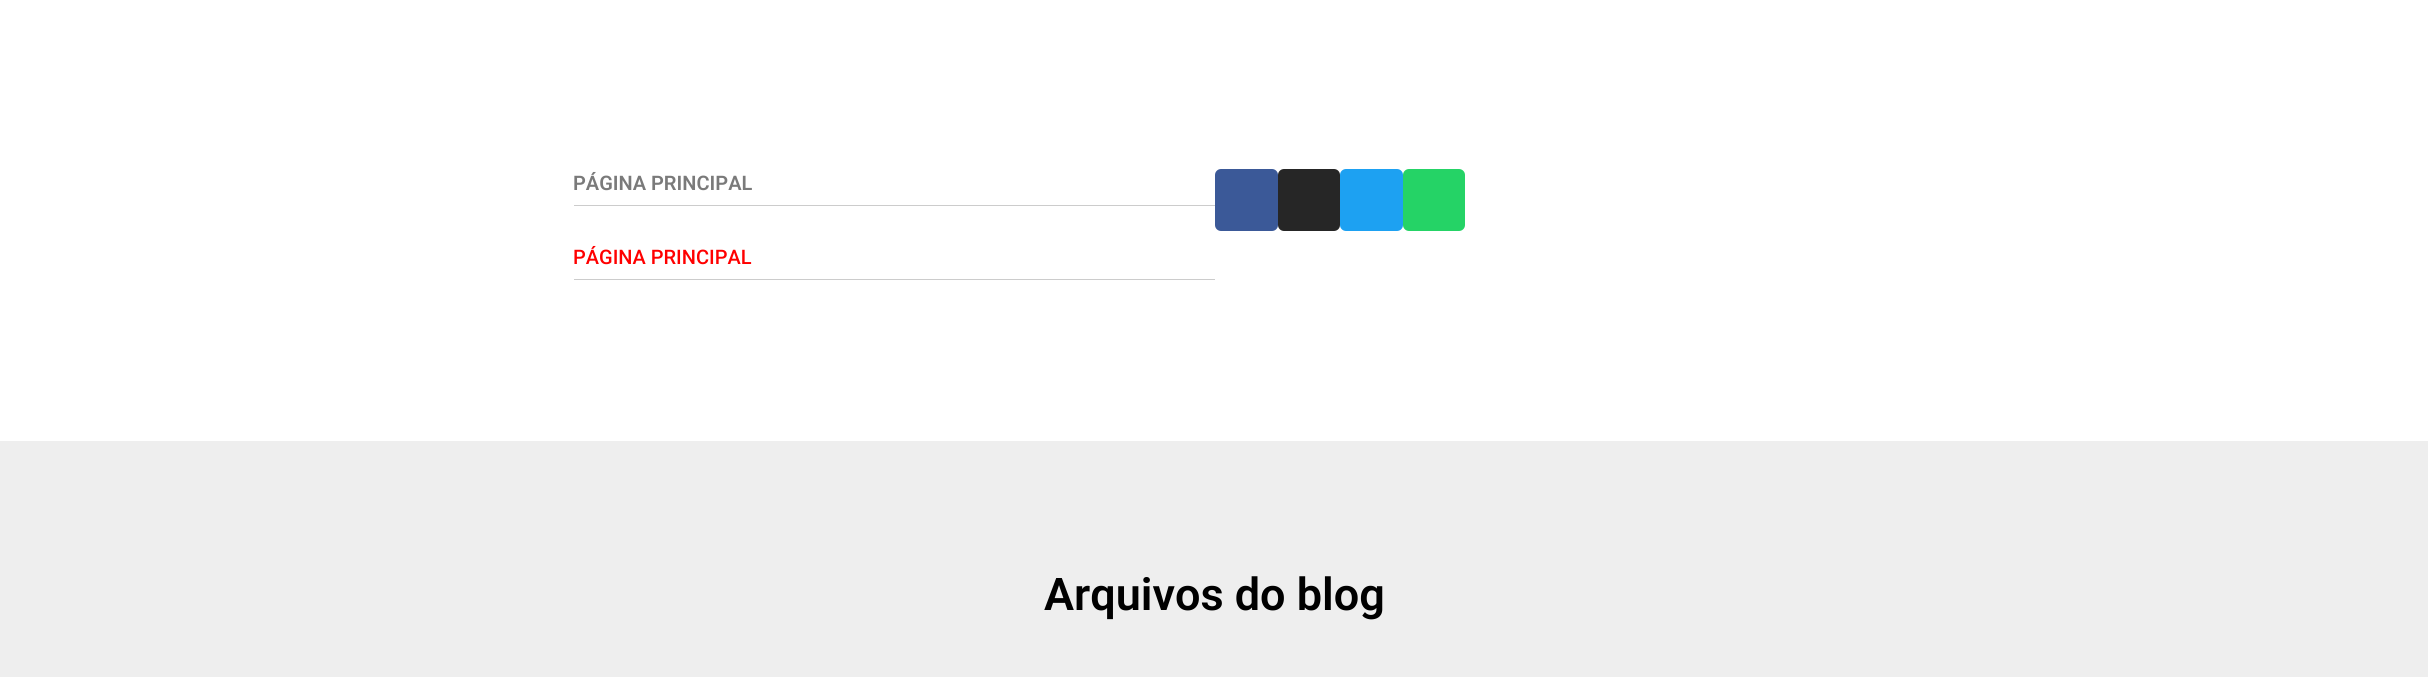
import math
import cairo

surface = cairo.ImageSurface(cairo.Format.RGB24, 2428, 677)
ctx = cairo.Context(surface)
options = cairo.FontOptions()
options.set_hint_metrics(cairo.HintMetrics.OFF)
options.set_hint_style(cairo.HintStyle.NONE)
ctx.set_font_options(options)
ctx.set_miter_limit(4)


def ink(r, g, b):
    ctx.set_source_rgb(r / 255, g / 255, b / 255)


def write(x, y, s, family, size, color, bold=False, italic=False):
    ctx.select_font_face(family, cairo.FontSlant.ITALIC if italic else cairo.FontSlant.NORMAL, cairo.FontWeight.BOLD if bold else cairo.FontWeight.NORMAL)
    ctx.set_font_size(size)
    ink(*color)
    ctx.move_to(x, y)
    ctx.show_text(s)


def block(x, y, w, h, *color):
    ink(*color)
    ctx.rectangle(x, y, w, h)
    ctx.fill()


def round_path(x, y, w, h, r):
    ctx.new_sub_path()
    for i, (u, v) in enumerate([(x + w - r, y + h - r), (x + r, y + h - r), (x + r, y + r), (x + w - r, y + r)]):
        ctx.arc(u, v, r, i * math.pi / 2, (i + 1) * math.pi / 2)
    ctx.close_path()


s1 = dict(family="Roboto SemiBold", size=20, color=(122, 122, 122))
s2 = dict(family="Roboto Medium", size=20, color=(255, 0, 0))
s3 = dict(family="Roboto SemiBold", size=45, color=(0, 0, 0))

ink(255, 255, 255)
ctx.paint()
block(574, 205, 641, 1, 204, 204, 204)
write(573, 190, "PÁGINA PRINCIPAL", **s1)
block(574, 279, 641, 1, 204, 204, 204)
write(573, 264, "PÁGINA PRINCIPAL", **s2)
ink(59, 89, 152)
round_path(1215, 169, 63, 62, 6)
ctx.fill()
ink(38, 38, 38)
round_path(1278, 169, 62, 62, 6)
ctx.fill()
ink(29, 161, 242)
round_path(1340, 169, 63, 62, 6)
ctx.fill()
ink(37, 211, 102)
round_path(1403, 169, 62, 62, 6)
ctx.fill()
block(0, 441, 2428, 236, 238, 238, 238)
write(1044, 610, "Arquivos do blog", **s3)
surface.write_to_png("screenshot.png")
